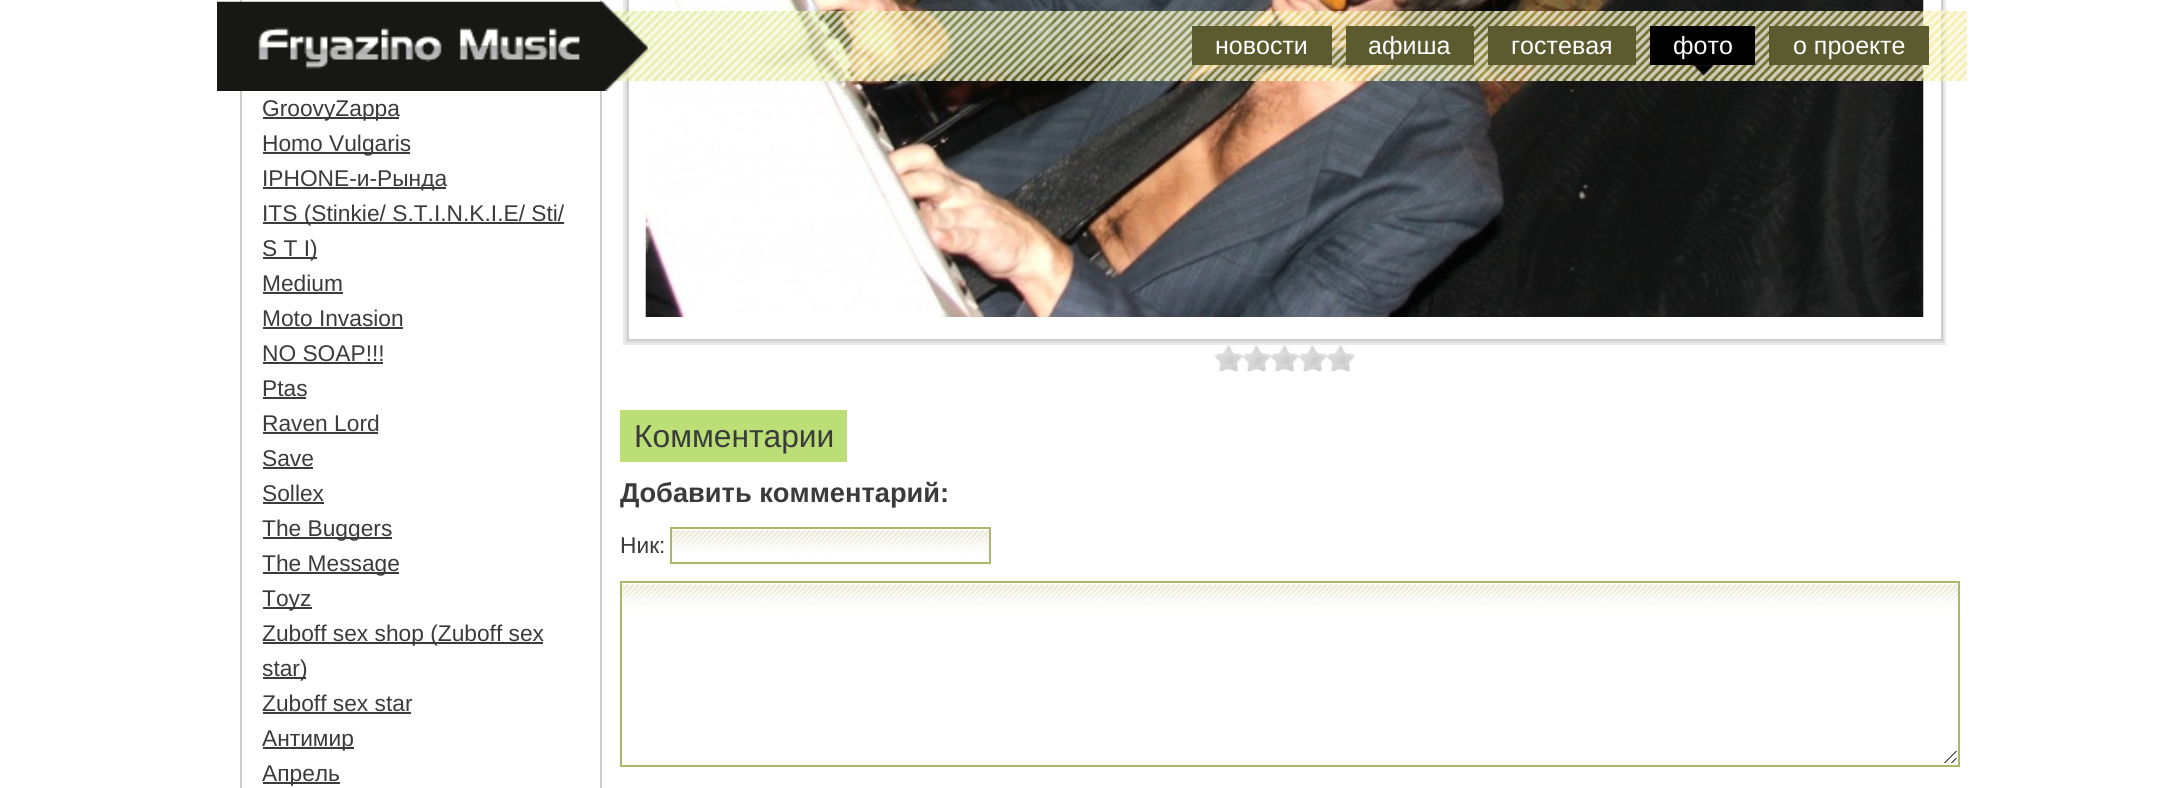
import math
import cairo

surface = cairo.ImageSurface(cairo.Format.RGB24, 2183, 788)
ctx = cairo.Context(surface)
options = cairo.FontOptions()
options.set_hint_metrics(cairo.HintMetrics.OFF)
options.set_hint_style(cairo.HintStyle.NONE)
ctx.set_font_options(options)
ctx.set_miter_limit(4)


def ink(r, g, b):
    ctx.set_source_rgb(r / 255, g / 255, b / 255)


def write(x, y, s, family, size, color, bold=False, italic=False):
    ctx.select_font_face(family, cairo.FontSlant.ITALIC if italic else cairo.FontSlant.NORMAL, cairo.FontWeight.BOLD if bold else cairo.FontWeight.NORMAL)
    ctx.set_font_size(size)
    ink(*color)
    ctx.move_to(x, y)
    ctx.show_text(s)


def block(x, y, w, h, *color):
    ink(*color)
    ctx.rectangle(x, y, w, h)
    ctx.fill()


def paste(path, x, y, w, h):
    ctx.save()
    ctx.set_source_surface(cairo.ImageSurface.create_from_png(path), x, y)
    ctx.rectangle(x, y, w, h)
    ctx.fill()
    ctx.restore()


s1 = dict(family="Liberation Sans", size=25, color=(255, 255, 255))
s2 = dict(family="Liberation Sans", size=22.75, color=(59, 59, 59))
s3 = dict(family="Liberation Sans", size=31.75, color=(59, 59, 59))
s4 = dict(family="Liberation Sans", size=27.25, color=(59, 59, 59), bold=True)

ink(255, 255, 255)
ctx.paint()
block(1944, 0, 2, 345, 235, 235, 235)
block(623, 343, 1323, 2, 235, 235, 235)
block(623, 0, 2, 345, 235, 235, 235)
ctx.rectangle(626, -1, 1317, 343)
ink(222, 222, 222)
ctx.stroke()
ctx.rectangle(628, -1, 1314, 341)
ink(206, 206, 206)
ctx.stroke()
paste("pic4.png", 645, 0, 1279, 317)
paste("pic1.png", 610, 11, 1357, 70)
block(600, 0, 2, 788, 205, 205, 205)
block(240, 0, 2, 788, 205, 205, 205)
paste("pic2.png", 217, 1, 431, 90)
block(1192, 26, 140, 39, 92, 91, 48)
write(1215, 54, "новости", **s1)
block(1346, 26, 128, 39, 92, 91, 48)
write(1368, 54, "афиша", **s1)
block(1488, 26, 148, 39, 92, 91, 48)
write(1511, 54, "гостевая", **s1)
block(1650, 26, 105, 39, 0, 0, 0)
write(1673, 54, "фото", **s1)
block(1769, 26, 160, 39, 92, 91, 48)
write(1793, 54, "о проекте", **s1)
paste("pic3.png", 1693, 65, 21, 11)
block(263, 117, 136, 2, 59, 59, 59)
write(262, 116, "GroovyZappa", **s2)
block(263, 152, 147, 2, 59, 59, 59)
write(262, 151, "Homo Vulgaris", **s2)
block(263, 187, 183, 2, 59, 59, 59)
write(262, 186, "IPHONE-и-Рында", **s2)
block(263, 222, 301, 2, 59, 59, 59)
write(262, 221, "ITS (Stinkie/ S.T.I.N.K.I.E/ Sti/", **s2)
block(263, 257, 54, 2, 59, 59, 59)
write(262, 256, "S T I)", **s2)
write(262, 291, "Medium", **s2)
block(263, 292, 80, 2, 59, 59, 59)
write(262, 326, "Moto Invasion", **s2)
block(263, 327, 140, 2, 59, 59, 59)
write(262, 361, "NO SOAP!!!", **s2)
block(263, 362, 120, 2, 59, 59, 59)
write(262, 396, "Ptas", **s2)
block(263, 397, 43, 2, 59, 59, 59)
write(262, 431, "Raven Lord", **s2)
block(263, 432, 115, 2, 59, 59, 59)
write(262, 466, "Save", **s2)
block(263, 467, 50, 2, 59, 59, 59)
write(262, 501, "Sollex", **s2)
block(263, 502, 61, 2, 59, 59, 59)
block(263, 537, 129, 2, 59, 59, 59)
write(262, 536, "The Buggers", **s2)
block(263, 572, 136, 2, 59, 59, 59)
write(262, 571, "The Message", **s2)
block(263, 607, 49, 2, 59, 59, 59)
write(262, 606, "Toyz", **s2)
block(263, 642, 280, 2, 59, 59, 59)
write(262, 641, "Zuboff sex shop (Zuboff sex", **s2)
block(263, 677, 43, 2, 59, 59, 59)
write(262, 676, "star)", **s2)
write(262, 711, "Zuboff sex star", **s2)
block(263, 712, 148, 2, 59, 59, 59)
block(263, 747, 91, 2, 59, 59, 59)
write(262, 746, "Антимир", **s2)
block(263, 782, 77, 2, 59, 59, 59)
write(262, 781, "Апрель", **s2)
paste("pic5.png", 1214, 345, 141, 27)
block(620, 410, 227, 52, 187, 222, 118)
write(634, 447, "Комментарии", **s3)
write(620, 502, "Добавить комментарий:", **s4)
write(620, 553, "Ник:", **s2)
paste("pic6.png", 672, 530, 317, 23)
ctx.rectangle(671, 528, 319, 35)
ink(171, 184, 103)
ctx.stroke()
paste("pic7.png", 619, 584, 1339, 179)
ctx.rectangle(621, 582, 1338, 184)
ctx.stroke()
surface.write_to_png("screenshot.png")
